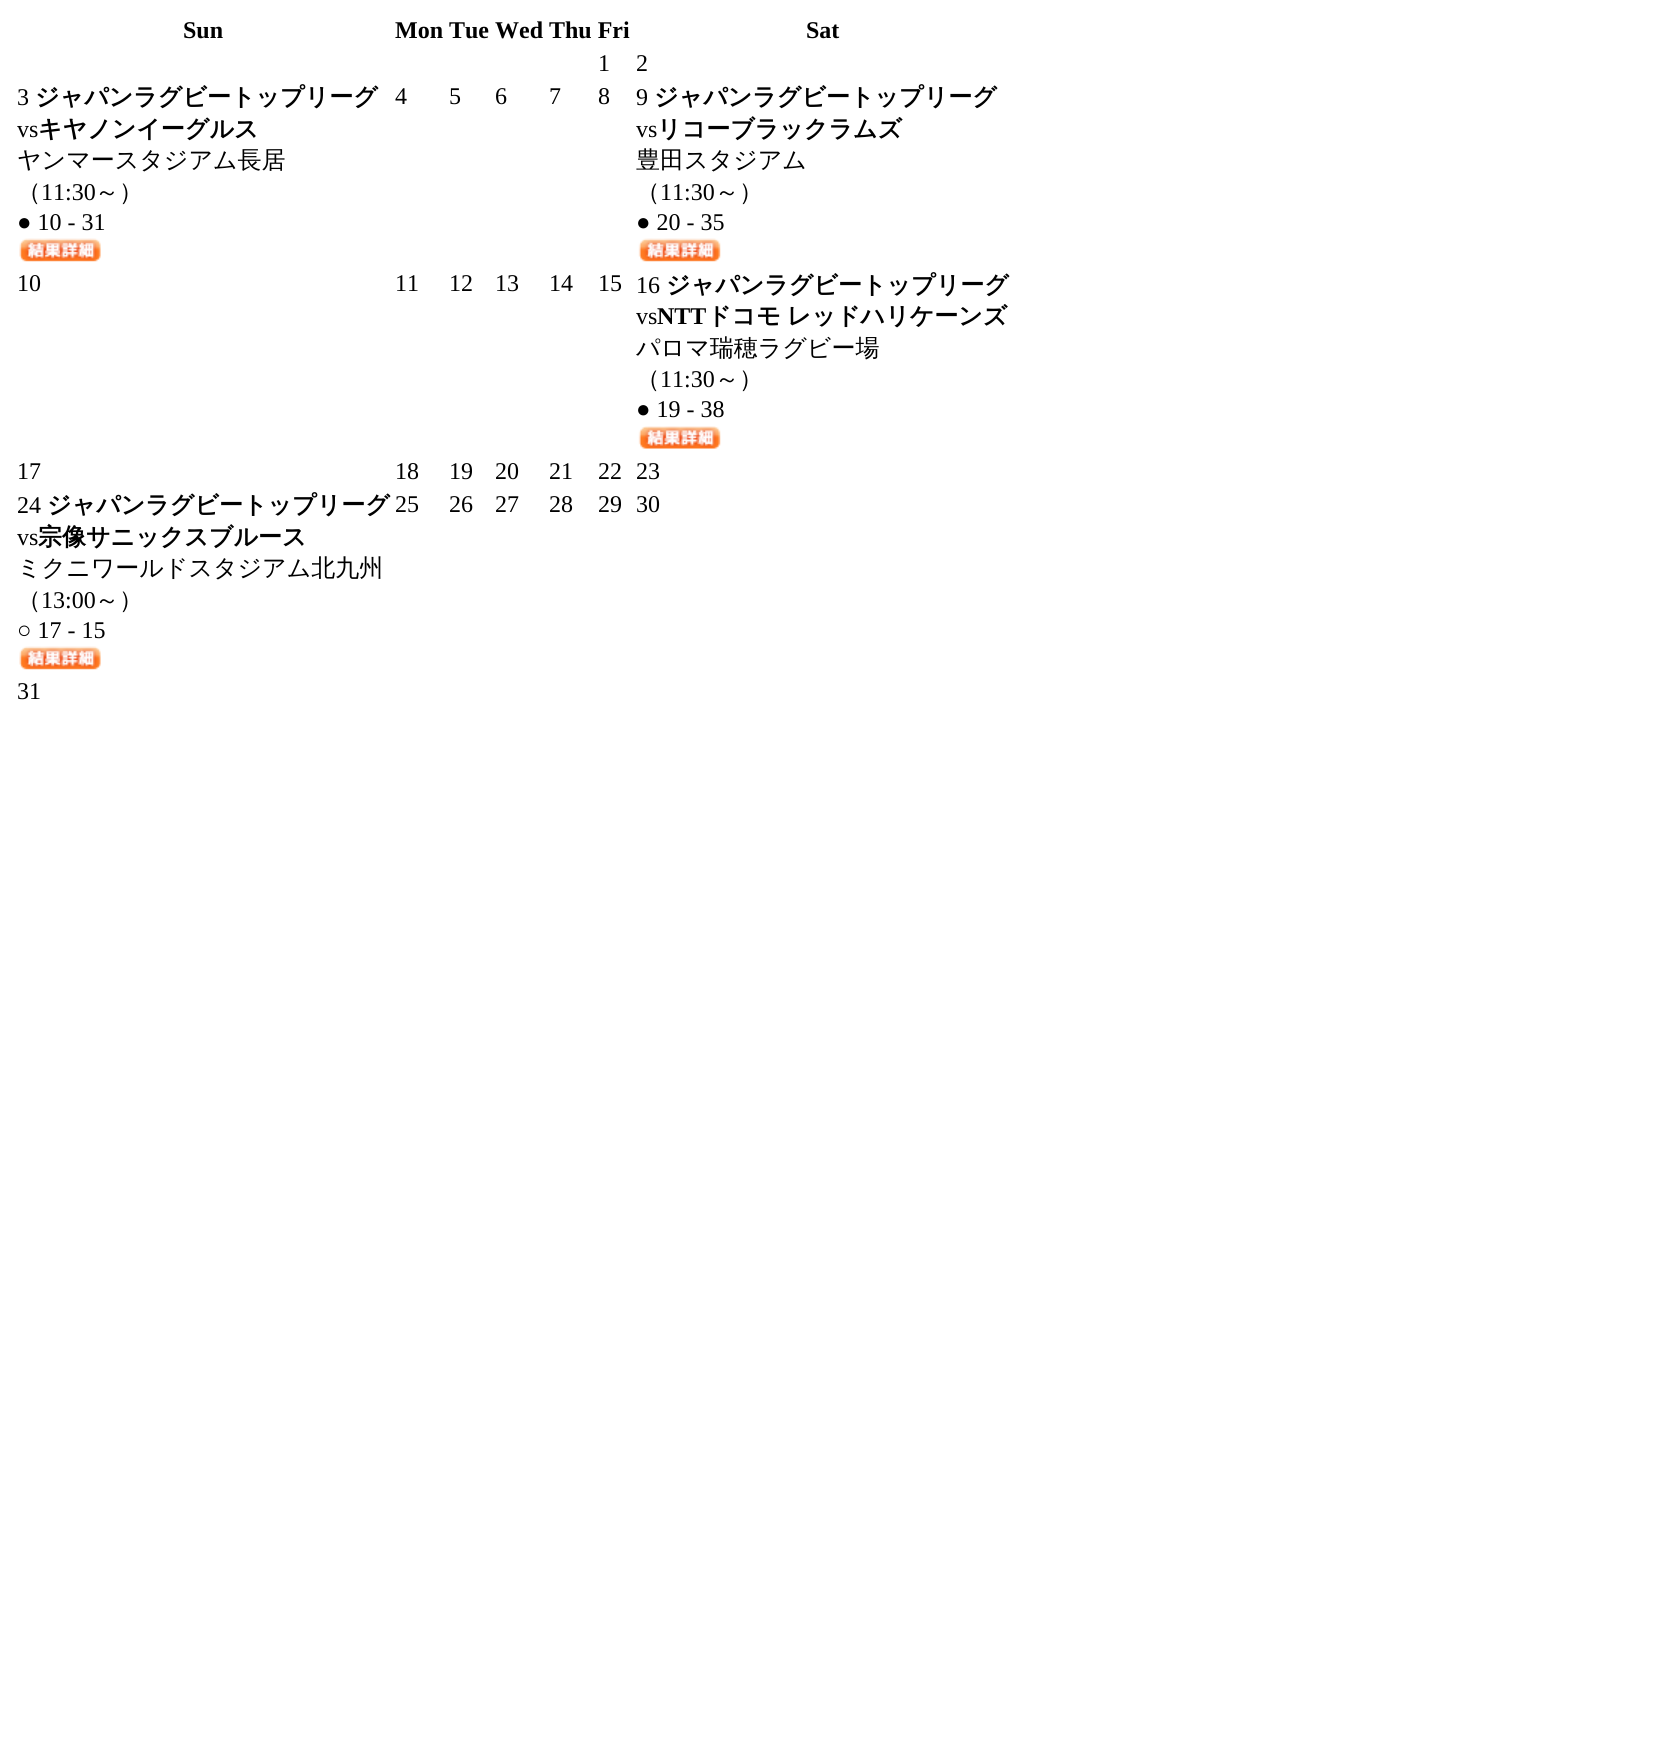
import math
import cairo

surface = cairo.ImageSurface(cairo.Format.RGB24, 1661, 1762)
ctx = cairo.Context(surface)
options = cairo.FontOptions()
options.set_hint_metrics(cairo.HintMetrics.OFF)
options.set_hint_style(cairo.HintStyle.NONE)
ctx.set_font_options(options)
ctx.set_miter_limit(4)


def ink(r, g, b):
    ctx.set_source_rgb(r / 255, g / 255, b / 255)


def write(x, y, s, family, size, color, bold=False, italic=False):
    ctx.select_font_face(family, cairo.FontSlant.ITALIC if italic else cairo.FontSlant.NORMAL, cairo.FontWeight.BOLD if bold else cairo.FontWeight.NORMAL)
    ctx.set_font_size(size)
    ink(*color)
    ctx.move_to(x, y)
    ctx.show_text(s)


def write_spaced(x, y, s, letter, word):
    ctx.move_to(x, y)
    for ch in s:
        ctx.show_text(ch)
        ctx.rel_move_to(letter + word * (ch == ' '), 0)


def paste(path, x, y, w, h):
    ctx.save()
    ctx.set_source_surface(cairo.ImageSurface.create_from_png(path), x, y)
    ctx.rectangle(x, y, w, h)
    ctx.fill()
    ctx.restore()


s1 = dict(family="Liberation Serif", size=24, color=(0, 0, 0), bold=True)
s2 = dict(family="Liberation Serif", size=24, color=(0, 0, 0))
s3 = dict(family="WenQuanYi Zen Hei", size=24, color=(0, 0, 0), bold=True)
s4 = dict(family="WenQuanYi Zen Hei Medium", size=24, color=(0, 0, 0))

ink(255, 255, 255)
ctx.paint()
write(183, 38, "Sun", **s1)
write(395, 38, "Mon Tue Wed Thu Fri", **s1)
write(806, 38, "Sat", **s1)
write(598, 71, "1", **s2)
write(636, 71, "2", **s2)
write(17, 105, "3", **s2)
write(35, 105, "ジャパンラグビートップリーグ", **s3)
write(17, 137, "vs", **s2)
write(38, 137, "キヤノンイーグルス", **s3)
write(17, 168, "ヤンマースタジアム長居", **s4)
write(17, 200, "（", **s4)
write(41, 200, "11:30", **s2)
write(95, 200, "～）", **s4)
write(17, 230, "● 10 - 31", **s2)
paste("pic1.png", 19, 238, 82, 24)
write(395, 104, "4", **s2)
write(449, 104, "5", **s2)
write(495, 104, "6", **s2)
write(549, 104, "7", **s2)
write(598, 104, "8", **s2)
write(636, 105, "9", **s2)
write(654, 105, "ジャパンラグビートップリーグ", **s3)
write(636, 137, "vs", **s2)
write(657, 137, "リコーブラックラムズ", **s3)
write(636, 168, "豊田スタジアム", **s4)
write(636, 200, "（", **s4)
write(660, 200, "11:30", **s2)
write(715, 200, "～）", **s4)
write(636, 230, "● 20 - 35", **s2)
paste("pic2.png", 638, 238, 83, 24)
write(17, 291, "10", **s2)
write(395, 291, "11", **s2)
write(449, 291, "12", **s2)
write(495, 291, "13", **s2)
write(549, 291, "14", **s2)
write(598, 291, "15", **s2)
write(636, 293, "16", **s2)
write(666, 293, "ジャパンラグビートップリーグ", **s3)
write(636, 324, "vs", **s2)
write(657, 324, "NTT", **s1)
ctx.select_font_face("WenQuanYi Zen Hei", cairo.FontSlant.NORMAL, cairo.FontWeight.BOLD)
write_spaced(707, 324, "ドコモ レッドハリケーンズ", 0, -1)
write(636, 356, "パロマ瑞穂ラグビー場", **s4)
write(636, 387, "（", **s4)
write(660, 387, "11:30", **s2)
write(715, 387, "～）", **s4)
write(636, 417, "● 19 - 38", **s2)
paste("pic3.png", 638, 426, 83, 23)
write(17, 479, "17", **s2)
write(395, 479, "18", **s2)
write(449, 479, "19", **s2)
write(495, 479, "20", **s2)
write(549, 479, "21", **s2)
write(598, 479, "22", **s2)
write(636, 479, "23", **s2)
write(17, 513, "24", **s2)
write(47, 513, "ジャパンラグビートップリーグ", **s3)
write(17, 545, "vs", **s2)
write(38, 545, "宗像サニックスブルース", **s3)
write(17, 576, "ミクニワールドスタジアム北九州", **s4)
write(17, 608, "（", **s4)
write(41, 608, "13:00", **s2)
write(95, 608, "～）", **s4)
write(17, 638, "○ 17 - 15", **s2)
paste("pic1.png", 19, 646, 82, 24)
write(395, 512, "25", **s2)
write(449, 512, "26", **s2)
write(495, 512, "27", **s2)
write(549, 512, "28", **s2)
write(598, 512, "29", **s2)
write(636, 512, "30", **s2)
write(17, 699, "31", **s2)
surface.write_to_png("screenshot.png")
